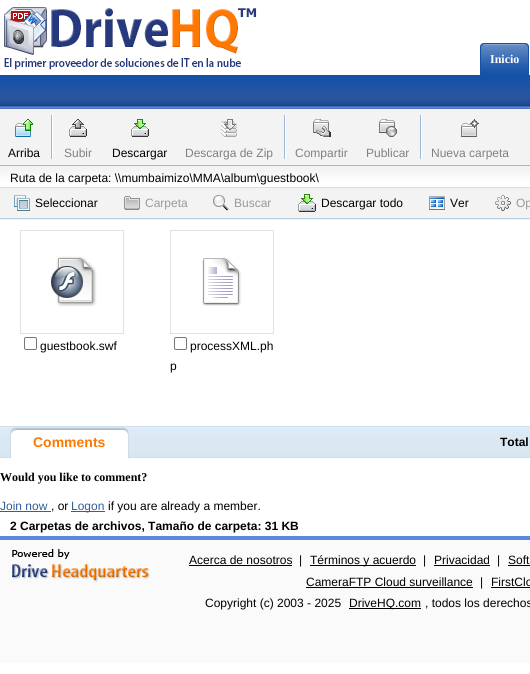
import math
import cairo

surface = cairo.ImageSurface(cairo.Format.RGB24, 530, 674)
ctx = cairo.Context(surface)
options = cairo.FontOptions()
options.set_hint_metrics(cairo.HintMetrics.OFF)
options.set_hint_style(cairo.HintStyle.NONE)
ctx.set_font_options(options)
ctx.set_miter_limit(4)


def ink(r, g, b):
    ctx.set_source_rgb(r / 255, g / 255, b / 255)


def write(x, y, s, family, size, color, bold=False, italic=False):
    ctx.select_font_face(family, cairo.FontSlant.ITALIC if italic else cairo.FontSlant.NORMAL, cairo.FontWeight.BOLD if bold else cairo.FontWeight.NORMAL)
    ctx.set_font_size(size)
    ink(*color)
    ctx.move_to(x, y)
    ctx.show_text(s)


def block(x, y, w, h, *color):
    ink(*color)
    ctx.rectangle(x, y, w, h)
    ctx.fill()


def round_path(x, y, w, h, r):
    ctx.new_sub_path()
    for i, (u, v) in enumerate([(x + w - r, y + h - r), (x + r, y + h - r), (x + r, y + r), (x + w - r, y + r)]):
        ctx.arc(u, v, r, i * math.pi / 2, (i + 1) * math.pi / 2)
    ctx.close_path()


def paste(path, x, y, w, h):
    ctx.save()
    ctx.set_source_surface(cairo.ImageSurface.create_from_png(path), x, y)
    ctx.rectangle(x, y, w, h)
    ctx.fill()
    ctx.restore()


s1 = dict(family="Liberation Serif", size=12, color=(255, 255, 255), bold=True)
s2 = dict(family="Liberation Sans", size=12, color=(1, 0, 0))
s3 = dict(family="Liberation Sans", size=12, color=(128, 128, 128))
s4 = dict(family="Liberation Sans", size=12, color=(153, 153, 153))
s5 = dict(family="Liberation Sans", size=14, color=(255, 120, 0), bold=True)
s6 = dict(family="Liberation Sans", size=12, color=(1, 0, 0), bold=True)
s7 = dict(family="Liberation Serif", size=12, color=(1, 0, 0), bold=True)
s8 = dict(family="Liberation Sans", size=12, color=(52, 93, 154))

ink(255, 255, 255)
ctx.paint()
paste("pic1.png", 0, 75, 530, 34)
paste("pic2.png", 4, 7, 253, 63)
paste("pic3.png", 480, 43, 4, 32)
paste("pic4.png", 484, 43, 45, 32)
write(490, 63, "Inicio", **s1)
block(0, 109, 530, 56, 243, 243, 243)
block(0, 165, 530, 1, 155, 185, 215)
paste("pic5.png", 15, 119, 18, 18)
write(8, 157, "Arriba", **s2)
paste("pic6.png", 51, 115, 2, 44)
paste("pic7.png", 69, 119, 18, 18)
write(64, 157, "Subir", **s3)
paste("pic8.png", 131, 119, 18, 18)
write(112, 157, "Descargar", **s2)
paste("pic9.png", 221, 119, 16, 18)
write(185, 157, "Descarga de Zip", **s3)
paste("pic6.png", 284, 115, 2, 44)
paste("pic10.png", 313, 119, 18, 18)
write(295, 157, "Compartir", **s3)
paste("pic11.png", 379, 119, 18, 18)
write(366, 157, "Publicar", **s3)
paste("pic6.png", 420, 115, 2, 44)
paste("pic12.png", 461, 119, 18, 18)
write(431, 157, "Nueva carpeta", **s3)
paste("pic13.png", 0, 166, 530, 54)
write(10, 182, "Ruta de la carpeta: \\\\mumbaimizo\\MMA\\album\\guestbook\\", **s2)
paste("pic14.png", 14, 195, 16, 16)
write(35, 207, "Seleccionar", **s2)
paste("pic15.png", 124, 196, 16, 14)
write(145, 207, "Carpeta", **s4)
paste("pic16.png", 213, 195, 16, 16)
write(234, 207, "Buscar", **s4)
paste("pic8.png", 298, 194, 18, 18)
write(321, 207, "Descargar todo", **s2)
paste("pic17.png", 429, 196, 16, 14)
write(450, 207, "Ver", **s2)
paste("pic18.png", 495, 195, 16, 16)
write(516, 207, "Op", **s4)
ctx.rectangle(20.5, 230.5, 103, 103)
ink(225, 225, 225)
ctx.set_line_width(1)
ctx.stroke()
paste("pic19.png", 51, 256, 46, 51)
round_path(24.5, 337.5, 12, 12, 1.5)
ink(118, 118, 118)
ctx.stroke()
write(40, 350, "guestbook.swf", **s2)
ctx.rectangle(170.5, 230.5, 103, 103)
ink(225, 225, 225)
ctx.stroke()
paste("pic20.png", 202, 258, 39, 48)
round_path(174.5, 337.5, 12, 12, 1.5)
ink(118, 118, 118)
ctx.stroke()
write(190, 350, "processXML.ph", **s2)
write(170, 370, "p", **s2)
paste("pic21.png", 0, 426, 530, 32)
paste("pic22.png", 10, 427, 119, 31)
write(33, 447, "Comments", **s5)
write(500, 446, "Total", **s6)
write(0, 481, "Would you like to comment?", **s7)
write(0, 510, "Join now", **s8)
block(0, 511, 51, 1, 52, 93, 154)
write(51, 510, ", or", **s2)
block(71, 511, 34, 1, 52, 93, 154)
write(71, 510, "Logon", **s8)
write(108, 510, "if you are already a member.", **s2)
write(10, 530, "2 Carpetas de archivos, Tamaño de carpeta: 31 KB", **s6)
block(0, 540, 530, 123, 250, 250, 250)
block(0, 536, 530, 4, 90, 138, 222)
paste("pic23.png", 12, 549, 138, 33)
write(189, 564, "Acerca de nosotros", **s2)
block(189, 565, 103, 1, 0, 0, 0)
write(299, 564, "|", **s2)
block(310, 565, 106, 1, 0, 0, 0)
write(310, 564, "Términos y acuerdo", **s2)
write(423, 564, "|", **s2)
write(434, 564, "Privacidad", **s2)
block(434, 565, 56, 1, 0, 0, 0)
write(497, 564, "|", **s2)
write(508, 564, "Soft", **s2)
block(508, 565, 22, 1, 0, 0, 0)
write(306, 586, "CameraFTP Cloud surveillance", **s2)
block(306, 587, 167, 1, 0, 0, 0)
write(480, 586, "|", **s2)
write(491, 586, "FirstClo", **s2)
block(491, 587, 39, 1, 0, 0, 0)
write(205, 607, "Copyright (c) 2003 - 2025", **s2)
block(349, 608, 72, 1, 0, 0, 0)
write(349, 607, "DriveHQ.com", **s2)
write(425, 607, ", todos los derechos", **s2)
surface.write_to_png("screenshot.png")
